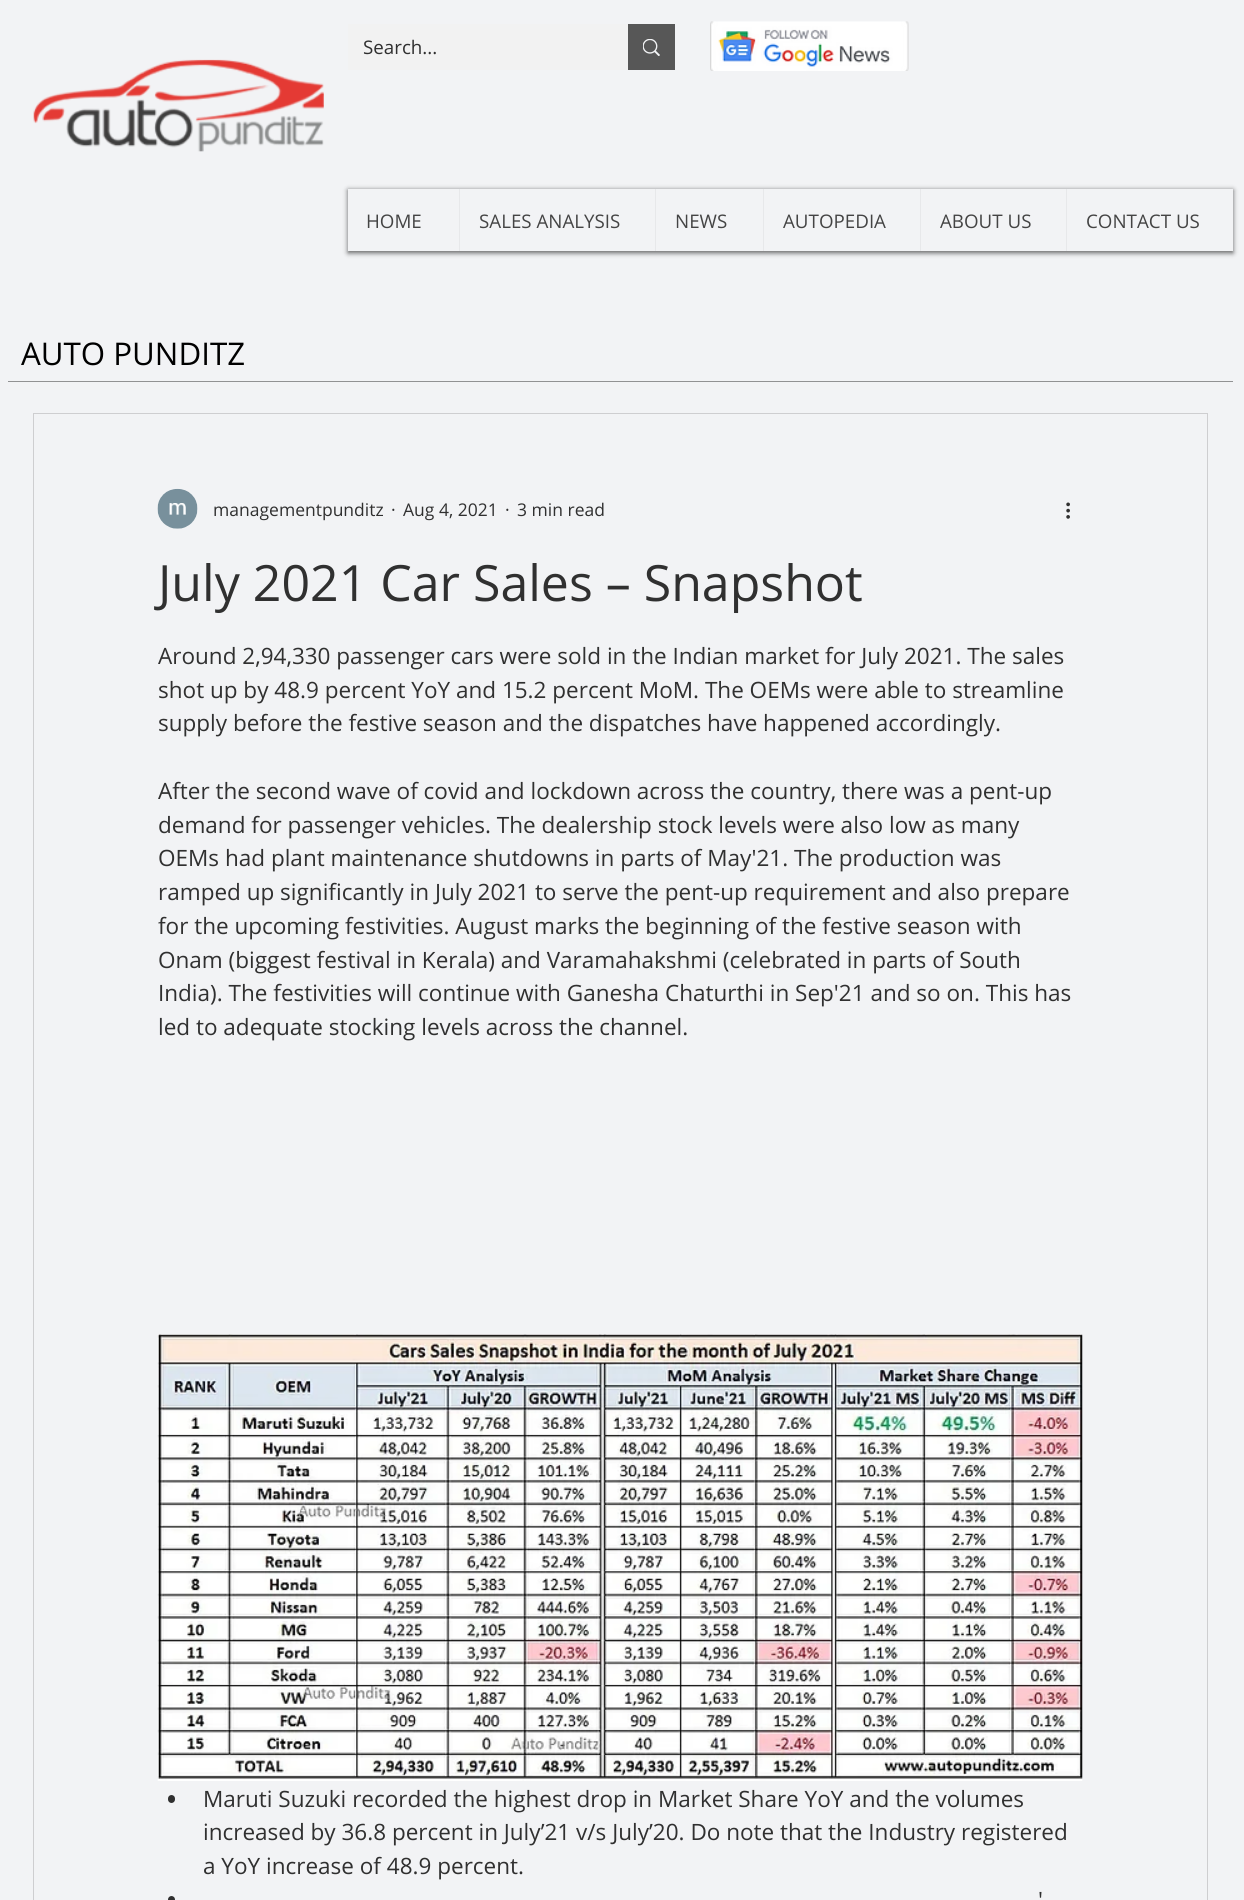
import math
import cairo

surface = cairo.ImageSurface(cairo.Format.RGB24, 1244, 1900)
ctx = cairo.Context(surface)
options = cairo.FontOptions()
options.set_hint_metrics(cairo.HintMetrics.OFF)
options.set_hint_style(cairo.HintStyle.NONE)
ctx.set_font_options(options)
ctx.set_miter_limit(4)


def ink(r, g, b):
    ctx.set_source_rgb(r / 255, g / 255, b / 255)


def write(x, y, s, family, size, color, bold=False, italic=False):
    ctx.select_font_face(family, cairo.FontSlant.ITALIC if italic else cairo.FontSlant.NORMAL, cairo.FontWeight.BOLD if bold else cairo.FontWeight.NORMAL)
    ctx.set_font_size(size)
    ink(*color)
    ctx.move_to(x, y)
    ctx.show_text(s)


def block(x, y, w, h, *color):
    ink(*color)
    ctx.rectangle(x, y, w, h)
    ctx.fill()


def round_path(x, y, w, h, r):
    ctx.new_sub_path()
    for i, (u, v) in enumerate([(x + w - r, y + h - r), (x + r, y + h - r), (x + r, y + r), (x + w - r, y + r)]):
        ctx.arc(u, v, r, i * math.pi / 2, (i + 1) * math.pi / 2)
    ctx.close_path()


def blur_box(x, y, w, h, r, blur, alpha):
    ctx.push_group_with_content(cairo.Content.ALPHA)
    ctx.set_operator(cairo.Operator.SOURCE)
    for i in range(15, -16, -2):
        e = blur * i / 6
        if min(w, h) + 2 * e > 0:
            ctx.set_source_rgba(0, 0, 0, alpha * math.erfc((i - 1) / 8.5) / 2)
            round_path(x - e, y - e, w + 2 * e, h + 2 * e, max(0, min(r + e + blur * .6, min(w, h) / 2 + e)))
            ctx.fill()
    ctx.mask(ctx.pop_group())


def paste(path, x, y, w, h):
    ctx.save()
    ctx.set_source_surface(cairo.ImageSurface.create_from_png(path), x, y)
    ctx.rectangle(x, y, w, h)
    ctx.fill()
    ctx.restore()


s1 = dict(family="Open Sans", size=18.75, color=(48, 48, 48))
s2 = dict(family="Open Sans", size=18.75, color=(68, 68, 68))
s3 = dict(family="Open Sans", size=31.25, color=(0, 0, 0))
s4 = dict(family="Open Sans", size=17.5, color=(48, 48, 48))
s5 = dict(family="Open Sans", size=50, color=(48, 48, 48))
s6 = dict(family="Open Sans", size=22.5, color=(48, 48, 48))

ink(242, 243, 245)
ctx.paint()
block(348, 24, 280, 46, 242, 242, 242)
write(363, 54, "Search...", **s1)
block(628, 24, 47, 46, 87, 87, 87)
paste("pic1.png", 643, 39, 17, 17)
paste("pic2.png", 710, 21, 199, 50)
paste("pic3.png", 33, 59, 291, 93)
ctx.save()
ctx.set_fill_rule(cairo.FillRule.EVEN_ODD)
ctx.new_path()
ctx.move_to(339, 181)
ctx.line_to(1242, 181)
ctx.line_to(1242, 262)
ctx.line_to(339, 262)
ctx.close_path()
ctx.move_to(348, 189)
ctx.line_to(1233, 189)
ctx.line_to(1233, 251)
ctx.line_to(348, 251)
ctx.close_path()
ctx.clip()
ink(0, 0, 0)
blur_box(348, 190, 885, 63, 0, 2.5, 0.6)
ctx.restore()
write(366, 228, "HOME", **s2)
block(459, 189, 1, 62, 231, 232, 234)
write(479, 228, "SALES ANALYSIS", **s2)
block(655, 189, 1, 62, 231, 232, 234)
write(675, 228, "NEWS", **s2)
block(763, 189, 1, 62, 231, 232, 234)
write(783, 228, "AUTOPEDIA", **s2)
block(920, 189, 1, 62, 231, 232, 234)
write(940, 228, "ABOUT US", **s2)
block(1066, 189, 1, 62, 231, 232, 234)
write(1086, 228, "CONTACT US", **s2)
write(21, 365, "AUTO PUNDITZ", **s3)
block(8, 381, 1225, 1, 145, 146, 147)
ctx.rectangle(33.5, 413.5, 1174, 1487)
ink(206, 206, 208)
ctx.set_line_width(1)
ctx.stroke()
paste("pic4.png", 157, 488, 41, 41)
write(213, 516, "managementpunditz", **s4)
write(391, 516, "·", **s4)
write(403, 516, "Aug 4, 2021", **s4)
write(505, 516, "·", **s4)
write(517, 516, "3 min read", **s4)
paste("pic5.png", 1066, 502, 4, 17)
write(158, 601, "July 2021 Car Sales – Snapshot", **s5)
write(158, 664, "Around 2,94,330 passenger cars were sold in the Indian market for July 2021. The sales", **s6)
write(158, 698, "shot up by 48.9 percent YoY and 15.2 percent MoM. The OEMs were able to streamline", **s6)
write(158, 731, "supply before the festive season and the dispatches have happened accordingly.", **s6)
write(158, 799, "After the second wave of covid and lockdown across the country, there was a pent-up", **s6)
write(158, 833, "demand for passenger vehicles. The dealership stock levels were also low as many", **s6)
write(158, 866, "OEMs had plant maintenance shutdowns in parts of May'21. The production was", **s6)
write(158, 900, "ramped up significantly in July 2021 to serve the pent-up requirement and also prepare", **s6)
write(158, 934, "for the upcoming festivities. August marks the beginning of the festive season with", **s6)
write(158, 968, "Onam (biggest festival in Kerala) and Varamahakshmi (celebrated in parts of South", **s6)
write(158, 1001, "India). The festivities will continue with Ganesha Chaturthi in Sep'21 and so on. This has", **s6)
write(158, 1035, "led to adequate stocking levels across the channel.", **s6)
paste("pic6.png", 157, 1334, 926, 447)
round_path(168, 1795, 7, 8, 3.5)
ctx.fill()
write(203, 1807, "Maruti Suzuki recorded the highest drop in Market Share YoY and the volumes", **s6)
write(203, 1840, "increased by 36.8 percent in July’21 v/s July’20. Do note that the Industry registered", **s6)
write(203, 1874, "a YoY increase of 48.9 percent.", **s6)
write(1038, 1908, "'", **s6)
round_path(168, 1896, 7, 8, 3.5)
ctx.fill()
surface.write_to_png("screenshot.png")
